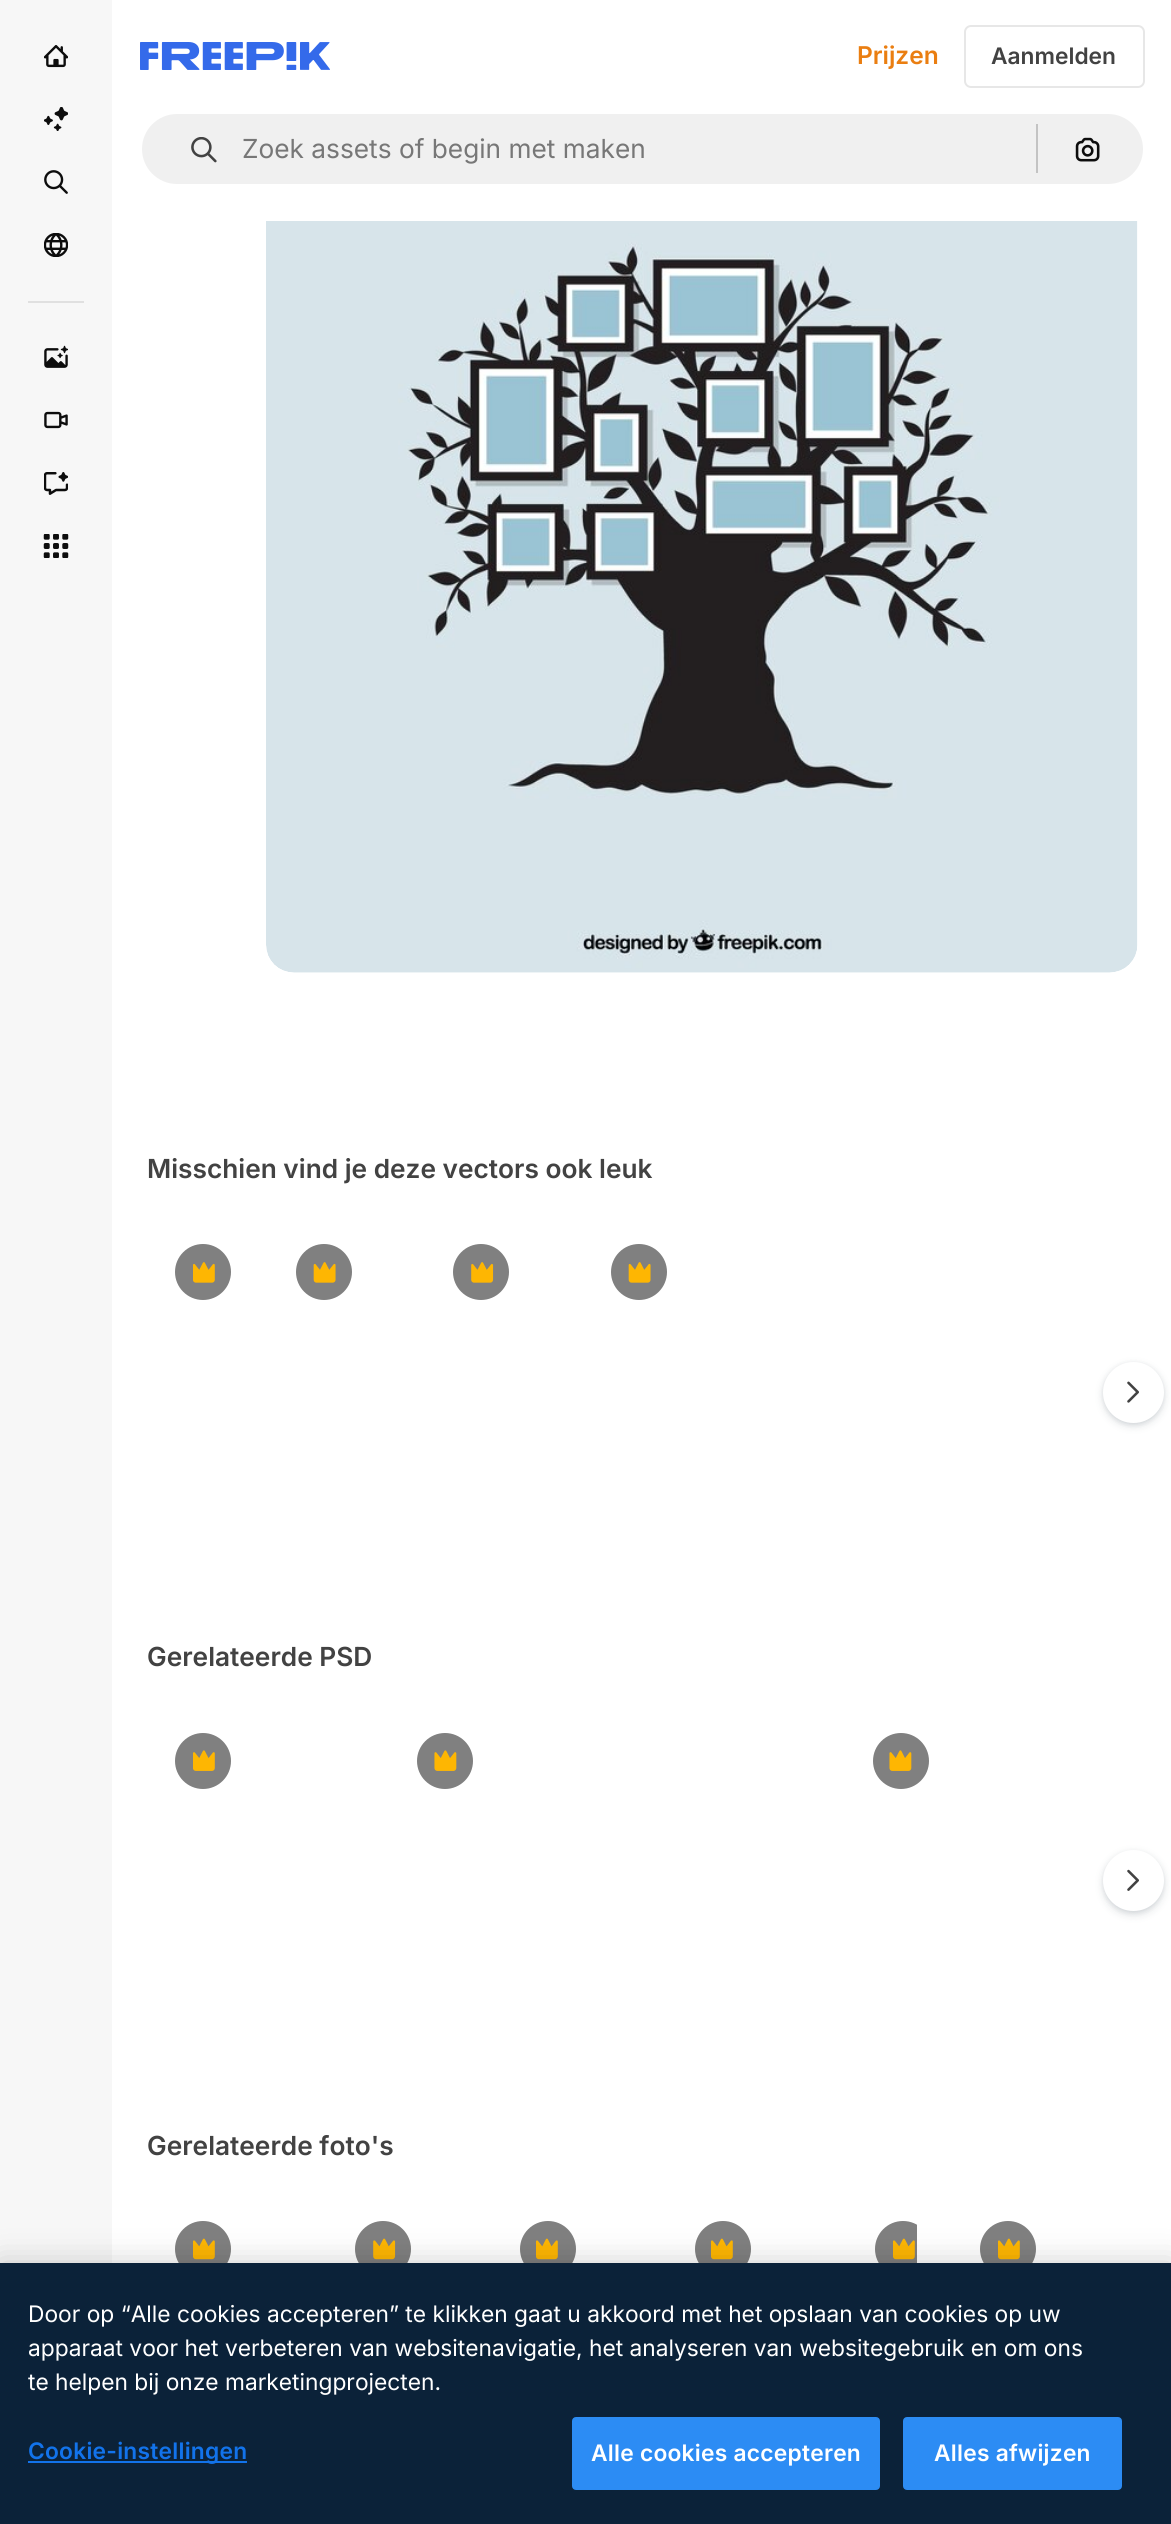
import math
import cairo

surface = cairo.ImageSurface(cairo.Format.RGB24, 1171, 2524)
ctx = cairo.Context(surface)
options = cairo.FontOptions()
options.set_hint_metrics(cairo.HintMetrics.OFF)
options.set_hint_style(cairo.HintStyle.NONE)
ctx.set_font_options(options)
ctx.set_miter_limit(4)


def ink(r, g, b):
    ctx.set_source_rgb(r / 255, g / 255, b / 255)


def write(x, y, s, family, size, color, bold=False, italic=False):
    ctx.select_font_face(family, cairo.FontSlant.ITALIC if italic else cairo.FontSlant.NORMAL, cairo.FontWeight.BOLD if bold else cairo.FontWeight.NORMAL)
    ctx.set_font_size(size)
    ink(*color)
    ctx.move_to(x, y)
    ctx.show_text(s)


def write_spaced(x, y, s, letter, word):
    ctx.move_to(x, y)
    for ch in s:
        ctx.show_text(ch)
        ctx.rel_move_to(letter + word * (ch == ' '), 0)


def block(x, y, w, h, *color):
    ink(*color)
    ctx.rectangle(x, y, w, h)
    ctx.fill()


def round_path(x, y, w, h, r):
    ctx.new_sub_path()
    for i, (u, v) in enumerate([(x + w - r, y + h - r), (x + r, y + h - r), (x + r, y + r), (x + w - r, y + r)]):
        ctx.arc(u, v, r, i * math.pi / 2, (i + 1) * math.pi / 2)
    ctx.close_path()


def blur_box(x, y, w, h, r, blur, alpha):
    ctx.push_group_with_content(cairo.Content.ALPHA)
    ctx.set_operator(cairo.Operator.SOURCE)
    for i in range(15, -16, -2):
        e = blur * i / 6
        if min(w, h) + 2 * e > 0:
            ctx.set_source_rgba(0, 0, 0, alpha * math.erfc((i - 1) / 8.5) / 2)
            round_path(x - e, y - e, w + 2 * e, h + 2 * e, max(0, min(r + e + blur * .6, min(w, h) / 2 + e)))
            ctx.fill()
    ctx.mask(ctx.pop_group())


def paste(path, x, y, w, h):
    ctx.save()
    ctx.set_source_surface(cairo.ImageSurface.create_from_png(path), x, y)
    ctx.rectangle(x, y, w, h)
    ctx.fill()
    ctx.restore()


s1 = dict(family="Inter SemiBold", size=24.5, color=(234, 126, 17))
s2 = dict(family="Inter SemiBold", size=22.75, color=(66, 66, 66))
s3 = dict(family="Inter", size=26.25, color=(119, 119, 119))
s4 = dict(family="Inter SemiBold", size=26.25, color=(66, 66, 66))
s5 = dict(family="Inter", size=22.75, color=(255, 255, 255))

ink(255, 255, 255)
ctx.paint()
block(0, 0, 112, 2263, 247, 247, 247)
paste("pic1.png", 44, 45, 24, 23)
paste("pic2.png", 44, 107, 24, 24)
paste("pic3.png", 44, 170, 24, 24)
paste("pic4.png", 44, 233, 24, 24)
block(28, 301, 56, 2, 224, 224, 224)
paste("pic5.png", 44, 345, 24, 23)
paste("pic6.png", 44, 411, 24, 18)
paste("pic7.png", 44, 472, 24, 23)
paste("pic8.png", 43, 534, 26, 24)
paste("pic9.png", 140, 42, 190, 28)
write(857, 64, "Prijzen", **s1)
round_path(965, 26, 179, 61, 6)
ink(231, 231, 231)
ctx.stroke()
write(991, 64, "Aanmelden", **s2)
ink(240, 240, 240)
round_path(141, 113, 1003, 72, 36)
ctx.fill_preserve()
ink(255, 255, 255)
ctx.stroke()
paste("pic10.png", 191, 137, 26, 26)
write(242, 158, "Zoek assets of begin met maken", **s3)
block(1036, 124, 2, 49, 195, 195, 195)
paste("pic11.png", 1075, 137, 25, 25)
paste("pic12.png", 266, 221, 872, 752)
write(147, 1178, "Misschien vind je deze vectors ook leuk", **s4)
ink(128, 128, 128)
ctx.new_path()
ctx.arc(203, 1272, 28, 0, 2 * math.pi)
ctx.fill()
paste("pic13.png", 193, 1262, 22, 21)
ctx.arc(324, 1272, 28, 0, 2 * math.pi)
ctx.fill()
paste("pic14.png", 313, 1262, 23, 21)
ctx.arc(481, 1272, 28, 0, 2 * math.pi)
ctx.fill()
paste("pic15.png", 471, 1262, 23, 21)
ctx.arc(639, 1272, 28, 0, 2 * math.pi)
ctx.fill()
paste("pic14.png", 628, 1262, 23, 21)
ink(55, 73, 87)
blur_box(1103, 1365, 61, 61, 30.5, 4.5, 0.15)
blur_box(1103, 1363, 61, 62, 30.5, 2, 0.1)
ink(255, 255, 255)
ctx.arc(1133.5, 1392.5, 30.5, 0, 2 * math.pi)
ctx.fill()
paste("pic16.png", 1127, 1381, 12, 22)
write(147, 1666, "Gerelateerde PSD", **s4)
ink(128, 128, 128)
ctx.new_path()
ctx.arc(203, 1761, 28, 0, 2 * math.pi)
ctx.fill()
paste("pic17.png", 193, 1750, 22, 21)
ctx.arc(445, 1761, 28, 0, 2 * math.pi)
ctx.fill()
paste("pic18.png", 434, 1750, 23, 21)
ctx.arc(901, 1761, 28, 0, 2 * math.pi)
ctx.fill()
paste("pic18.png", 889, 1750, 23, 21)
ink(55, 73, 87)
blur_box(1103, 1853, 61, 62, 30.5, 4.5, 0.15)
blur_box(1103, 1852, 61, 61, 30.5, 2, 0.1)
ink(255, 255, 255)
ctx.arc(1133.5, 1880.5, 30.5, 0, 2 * math.pi)
ctx.fill()
paste("pic19.png", 1127, 1869, 12, 22)
write(147, 2155, "Gerelateerde foto's", **s4)
ink(128, 128, 128)
ctx.new_path()
ctx.arc(203, 2249, 28, 0, 2 * math.pi)
ctx.fill()
paste("pic20.png", 193, 2238, 22, 22)
ctx.arc(383, 2249, 28, 0, 2 * math.pi)
ctx.fill()
paste("pic21.png", 373, 2238, 23, 22)
ctx.arc(548, 2249, 28, 0, 2 * math.pi)
ctx.fill()
paste("pic20.png", 536, 2238, 22, 22)
ctx.arc(723, 2249, 28, 0, 2 * math.pi)
ctx.fill()
paste("pic20.png", 711, 2238, 22, 22)
ctx.save()
round_path(847, 2193, 70, 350, 28)
ctx.clip()
ctx.arc(903, 2249, 28, 0, 2 * math.pi)
ctx.fill()
ctx.restore()
paste("pic20.png", 893, 2238, 22, 22)
ctx.arc(1008, 2249, 28, 0, 2 * math.pi)
ctx.fill()
paste("pic20.png", 998, 2238, 22, 22)
ink(0, 0, 0)
blur_box(0, 2263, 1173, 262, 0, 16, 0.2)
block(0, 2263, 1171, 261, 11, 34, 57)
write(28, 2322, "Door op “Alle cookies accepteren” te klikken gaat u akkoord met het opslaan van cookies op uw", **s5)
write(28, 2356, "apparaat voor het verbeteren van websitenavigatie, het analyseren van websitegebruik en om ons", **s5)
write(28, 2390, "te helpen bij onze marketingprojecten.", **s5)
block(28, 2461, 219, 2, 18, 115, 235)
ctx.select_font_face("Inter SemiBold")
write_spaced(28, 2459, "Cookie-instellingen", 0.25, 0)
ink(44, 140, 244)
round_path(573, 2418, 306, 71, 3)
ctx.fill_preserve()
ctx.stroke()
ink(255, 255, 255)
write_spaced(591, 2461, "Alle cookies accepteren", 0.25, 0)
ink(44, 140, 244)
round_path(904, 2418, 217, 71, 3)
ctx.fill_preserve()
ctx.stroke()
ink(255, 255, 255)
write_spaced(934, 2461, "Alles afwijzen", 0.25, 0)
surface.write_to_png("screenshot.png")
